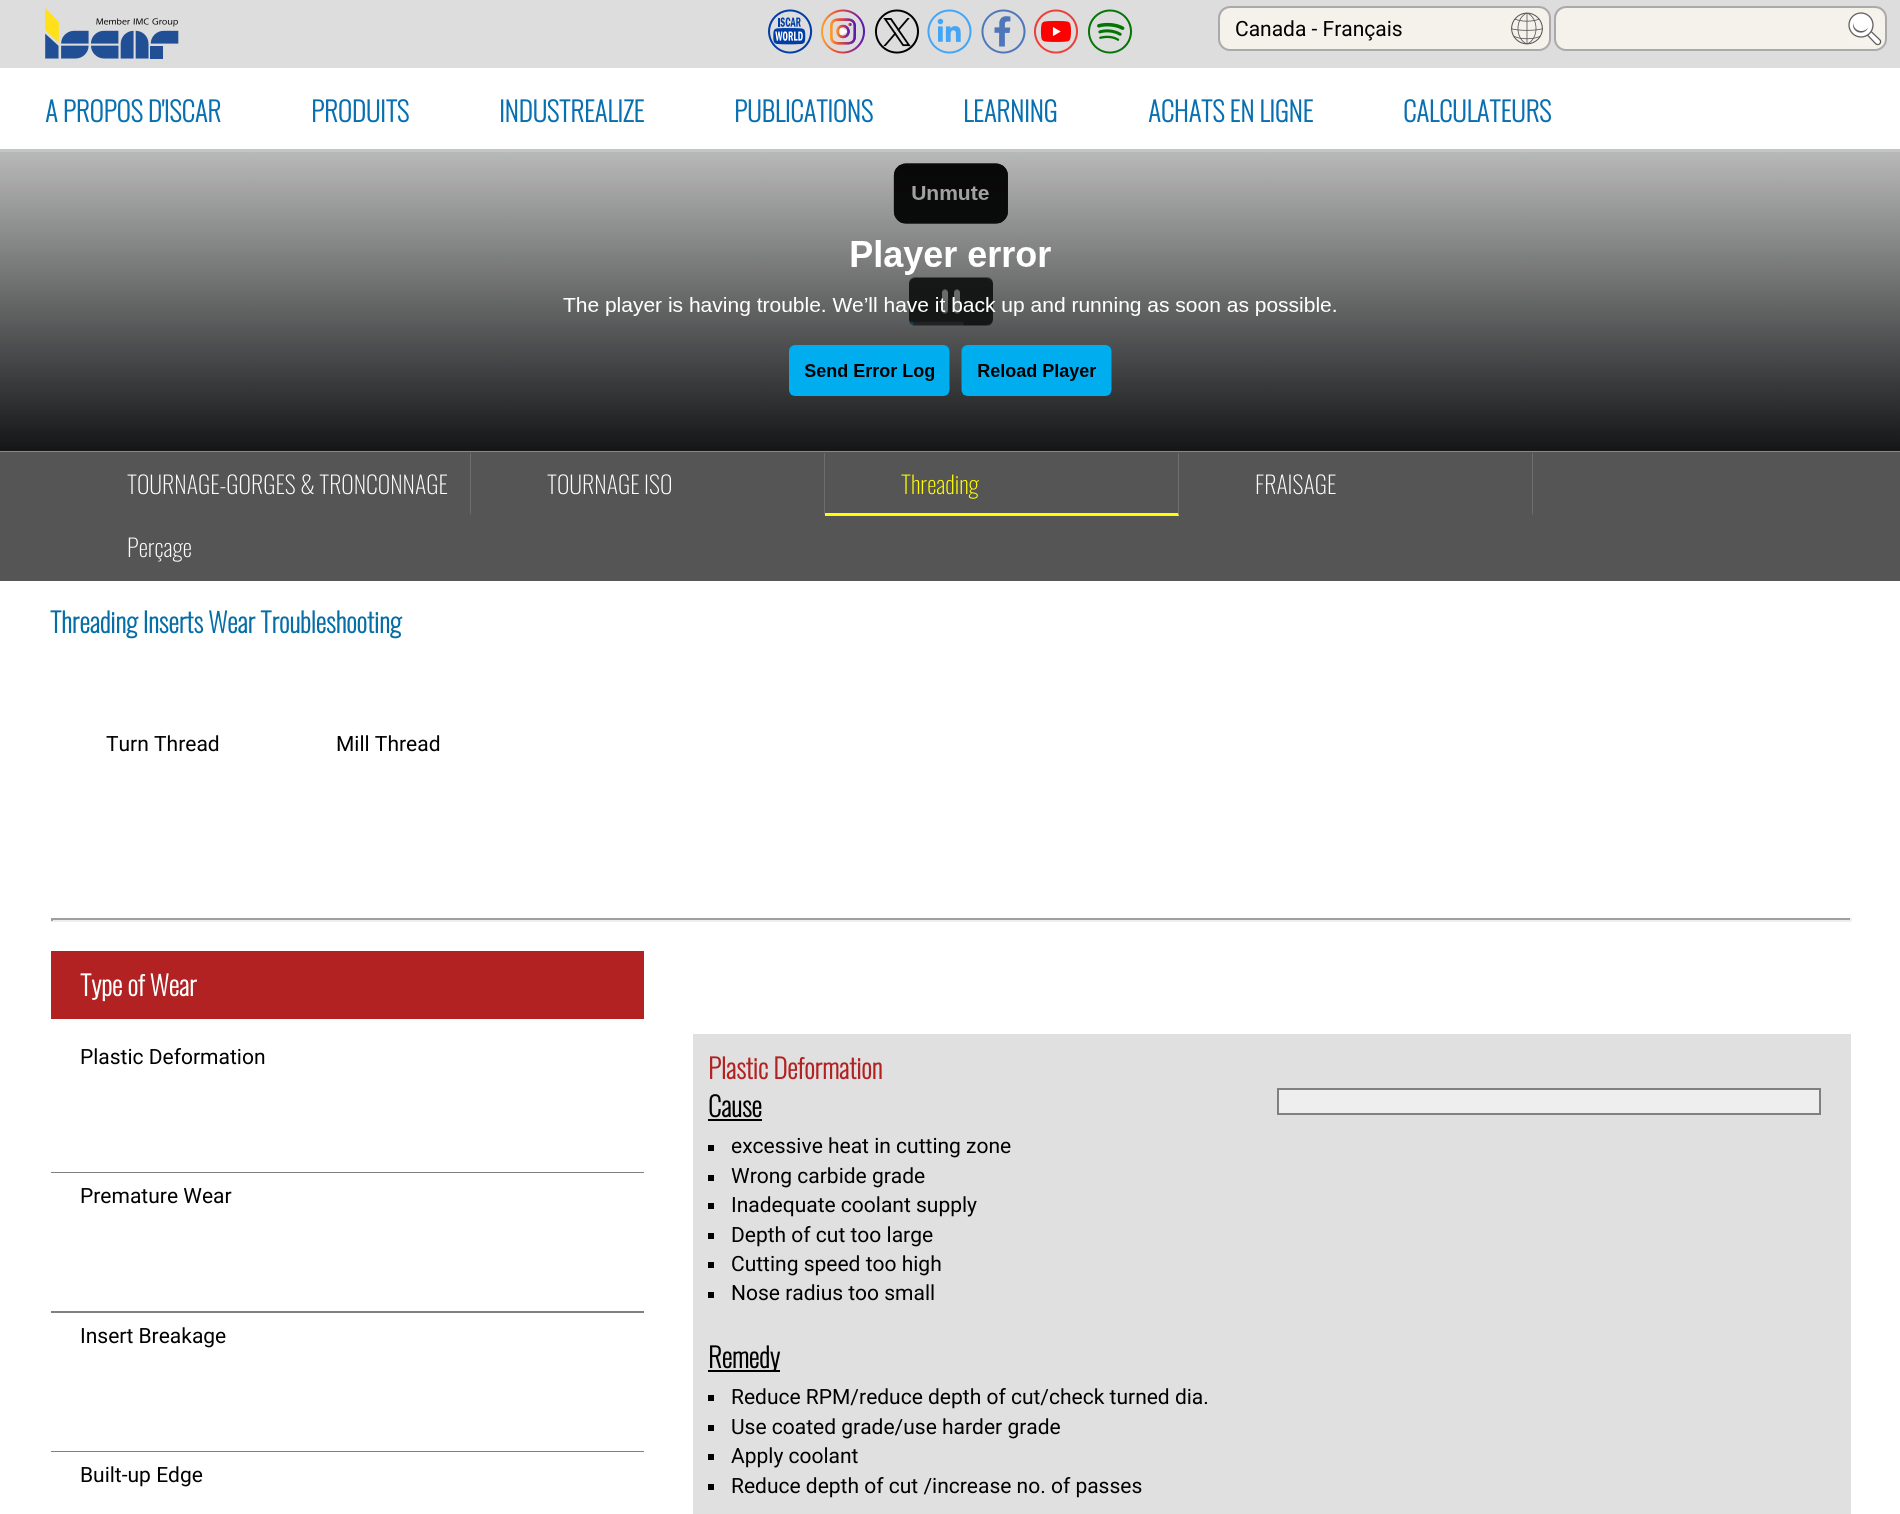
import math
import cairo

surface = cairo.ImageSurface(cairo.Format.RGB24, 1900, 1514)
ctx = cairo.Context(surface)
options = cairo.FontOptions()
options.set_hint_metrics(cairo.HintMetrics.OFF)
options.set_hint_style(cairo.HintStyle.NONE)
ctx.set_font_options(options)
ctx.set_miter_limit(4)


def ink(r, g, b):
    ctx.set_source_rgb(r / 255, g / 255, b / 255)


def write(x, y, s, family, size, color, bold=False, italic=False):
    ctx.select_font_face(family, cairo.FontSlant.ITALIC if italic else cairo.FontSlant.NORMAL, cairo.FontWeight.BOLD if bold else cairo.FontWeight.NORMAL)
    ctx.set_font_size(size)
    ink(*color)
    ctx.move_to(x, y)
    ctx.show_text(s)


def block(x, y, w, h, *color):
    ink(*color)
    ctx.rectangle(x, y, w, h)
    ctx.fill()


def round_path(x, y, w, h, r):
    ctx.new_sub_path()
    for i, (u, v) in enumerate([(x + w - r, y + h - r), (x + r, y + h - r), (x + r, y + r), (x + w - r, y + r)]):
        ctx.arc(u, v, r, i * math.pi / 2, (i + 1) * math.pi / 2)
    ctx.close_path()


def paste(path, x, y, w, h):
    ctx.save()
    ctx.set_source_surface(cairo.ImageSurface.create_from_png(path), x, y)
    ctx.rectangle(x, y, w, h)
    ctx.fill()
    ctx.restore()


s1 = dict(family="Roboto", size=21, color=(0, 0, 0))
s2 = dict(family="Oswald", size=27, color=(8, 111, 177), bold=True)
s3 = dict(family="Oswald ExtraLight", size=24, color=(255, 255, 255))
s4 = dict(family="Oswald ExtraLight", size=24, color=(255, 255, 0))
s5 = dict(family="Oswald", size=27, color=(6, 110, 166), bold=True)
s6 = dict(family="Oswald", size=27, color=(255, 255, 255), bold=True)
s7 = dict(family="Oswald", size=27, color=(178, 34, 34), bold=True)
s8 = dict(family="Oswald", size=27, color=(0, 0, 0), bold=True)

ink(255, 255, 255)
ctx.paint()
block(0, 0, 1900, 68, 221, 221, 221)
paste("pic1.png", 45, 8, 134, 51)
paste("pic2.png", 768, 9, 45, 45)
paste("pic3.png", 820, 9, 46, 45)
paste("pic4.png", 874, 9, 46, 45)
paste("pic5.png", 927, 9, 45, 45)
paste("pic6.png", 981, 9, 45, 45)
paste("pic7.png", 1033, 9, 46, 45)
paste("pic8.png", 1087, 9, 46, 45)
ink(245, 242, 235)
round_path(1220, 8, 330, 42, 11)
ctx.fill()
paste("pic9.png", 1511, 12, 32, 33)
round_path(1219, 7, 331, 43, 11)
ink(170, 170, 170)
ctx.stroke()
write(1235, 36, "Canada - Français", **s1)
ink(245, 242, 235)
round_path(1556, 8, 330, 42, 11)
ctx.fill()
paste("pic10.png", 1848, 12, 34, 34)
ctx.set_source_rgba(1, 1, 1, 0.07)
ctx.rectangle(1848, 12, 32, 34)
ctx.fill()
round_path(1555, 7, 331, 43, 11)
ink(170, 170, 170)
ctx.stroke()
write(45, 122, "A PROPOS D'ISCAR", **s2)
write(311, 122, "PRODUITS", **s2)
write(499, 122, "INDUSTREALIZE", **s2)
write(734, 122, "PUBLICATIONS", **s2)
write(963, 122, "LEARNING", **s2)
write(1148, 122, "ACHATS EN LIGNE", **s2)
write(1403, 122, "CALCULATEURS", **s2)
block(0, 149, 1900, 3, 197, 197, 197)
paste("pic11.png", 0, 152, 1900, 300)
block(0, 452, 1900, 129, 85, 85, 85)
ink(109, 109, 109)
ctx.new_path()
ctx.move_to(471, 453)
ctx.line_to(471, 516)
ctx.line_to(470, 513)
ctx.line_to(470, 453)
ctx.close_path()
ctx.fill()
ink(85, 85, 85)
ctx.new_path()
ctx.move_to(471, 516)
ctx.line_to(52, 516)
ctx.line_to(52, 513)
ctx.line_to(470, 513)
ctx.close_path()
ctx.fill()
write(127, 494, "TOURNAGE-GORGES & TRONCONNAGE", **s3)
ink(109, 109, 109)
ctx.new_path()
ctx.move_to(825, 453)
ctx.line_to(825, 516)
ctx.line_to(824, 513)
ctx.line_to(824, 453)
ctx.close_path()
ctx.fill()
ink(85, 85, 85)
ctx.new_path()
ctx.move_to(825, 516)
ctx.line_to(471, 516)
ctx.line_to(471, 513)
ctx.line_to(824, 513)
ctx.close_path()
ctx.fill()
write(547, 494, "TOURNAGE ISO", **s3)
ink(109, 109, 109)
ctx.new_path()
ctx.move_to(1179, 453)
ctx.line_to(1179, 516)
ctx.line_to(1178, 513)
ctx.line_to(1178, 453)
ctx.close_path()
ctx.fill()
ink(255, 255, 0)
ctx.new_path()
ctx.move_to(1179, 516)
ctx.line_to(825, 516)
ctx.line_to(825, 513)
ctx.line_to(1178, 513)
ctx.close_path()
ctx.fill()
write(901, 494, "Threading", **s4)
ink(109, 109, 109)
ctx.new_path()
ctx.move_to(1533, 453)
ctx.line_to(1533, 516)
ctx.line_to(1532, 513)
ctx.line_to(1532, 453)
ctx.close_path()
ctx.fill()
ink(85, 85, 85)
ctx.new_path()
ctx.move_to(1533, 516)
ctx.line_to(1179, 516)
ctx.line_to(1179, 513)
ctx.line_to(1532, 513)
ctx.close_path()
ctx.fill()
write(1255, 494, "FRAISAGE", **s3)
write(127, 557, "Perçage", **s3)
write(50, 633, "Threading Inserts Wear Troubleshooting", **s5)
write(106, 751, "Turn Thread", **s1)
write(336, 751, "Mill Thread", **s1)
block(51, 918, 1800, 2, 159, 159, 159)
block(1850, 918, 2, 3, 238, 238, 238)
block(51, 920, 1800, 2, 238, 238, 238)
block(51, 918, 2, 3, 159, 159, 159)
block(51, 951, 593, 68, 178, 34, 34)
write(80, 996, "Type of Wear", **s6)
block(51, 1172, 593, 1, 128, 128, 128)
write(80, 1064, "Plastic Deformation", **s1)
block(693, 1034, 1158, 480, 224, 224, 224)
write(708, 1079, "Plastic Deformation", **s7)
write(708, 1117, "Cause", **s8)
block(708, 1119, 54, 2, 0, 0, 0)
ink(238, 238, 238)
ctx.rectangle(1278, 1089, 542, 25)
ctx.fill_preserve()
ink(128, 128, 128)
ctx.stroke()
block(708, 1145, 6, 6, 0, 0, 0)
write(731, 1153, "excessive heat in cutting zone", **s1)
block(708, 1175, 6, 6, 0, 0, 0)
write(731, 1183, "Wrong carbide grade", **s1)
block(708, 1203, 6, 6, 0, 0, 0)
write(731, 1212, "Inadequate coolant supply", **s1)
block(708, 1233, 6, 6, 0, 0, 0)
write(731, 1242, "Depth of cut too large", **s1)
block(708, 1262, 6, 6, 0, 0, 0)
write(731, 1271, "Cutting speed too high", **s1)
block(708, 1292, 6, 6, 0, 0, 0)
write(731, 1300, "Nose radius too small", **s1)
block(708, 1370, 72, 2, 0, 0, 0)
write(708, 1368, "Remedy", **s8)
block(708, 1395, 6, 6, 0, 0, 0)
write(731, 1404, "Reduce RPM/reduce depth of cut/check turned dia.", **s1)
block(708, 1425, 6, 6, 0, 0, 0)
write(731, 1434, "Use coated grade/use harder grade", **s1)
block(708, 1454, 6, 6, 0, 0, 0)
write(731, 1463, "Apply coolant", **s1)
block(708, 1484, 6, 6, 0, 0, 0)
write(731, 1493, "Reduce depth of cut /increase no. of passes", **s1)
block(51, 1311, 593, 2, 128, 128, 128)
write(80, 1203, "Premature Wear", **s1)
block(51, 1451, 593, 1, 128, 128, 128)
write(80, 1343, "Insert Breakage", **s1)
write(80, 1482, "Built-up Edge", **s1)
surface.write_to_png("screenshot.png")
